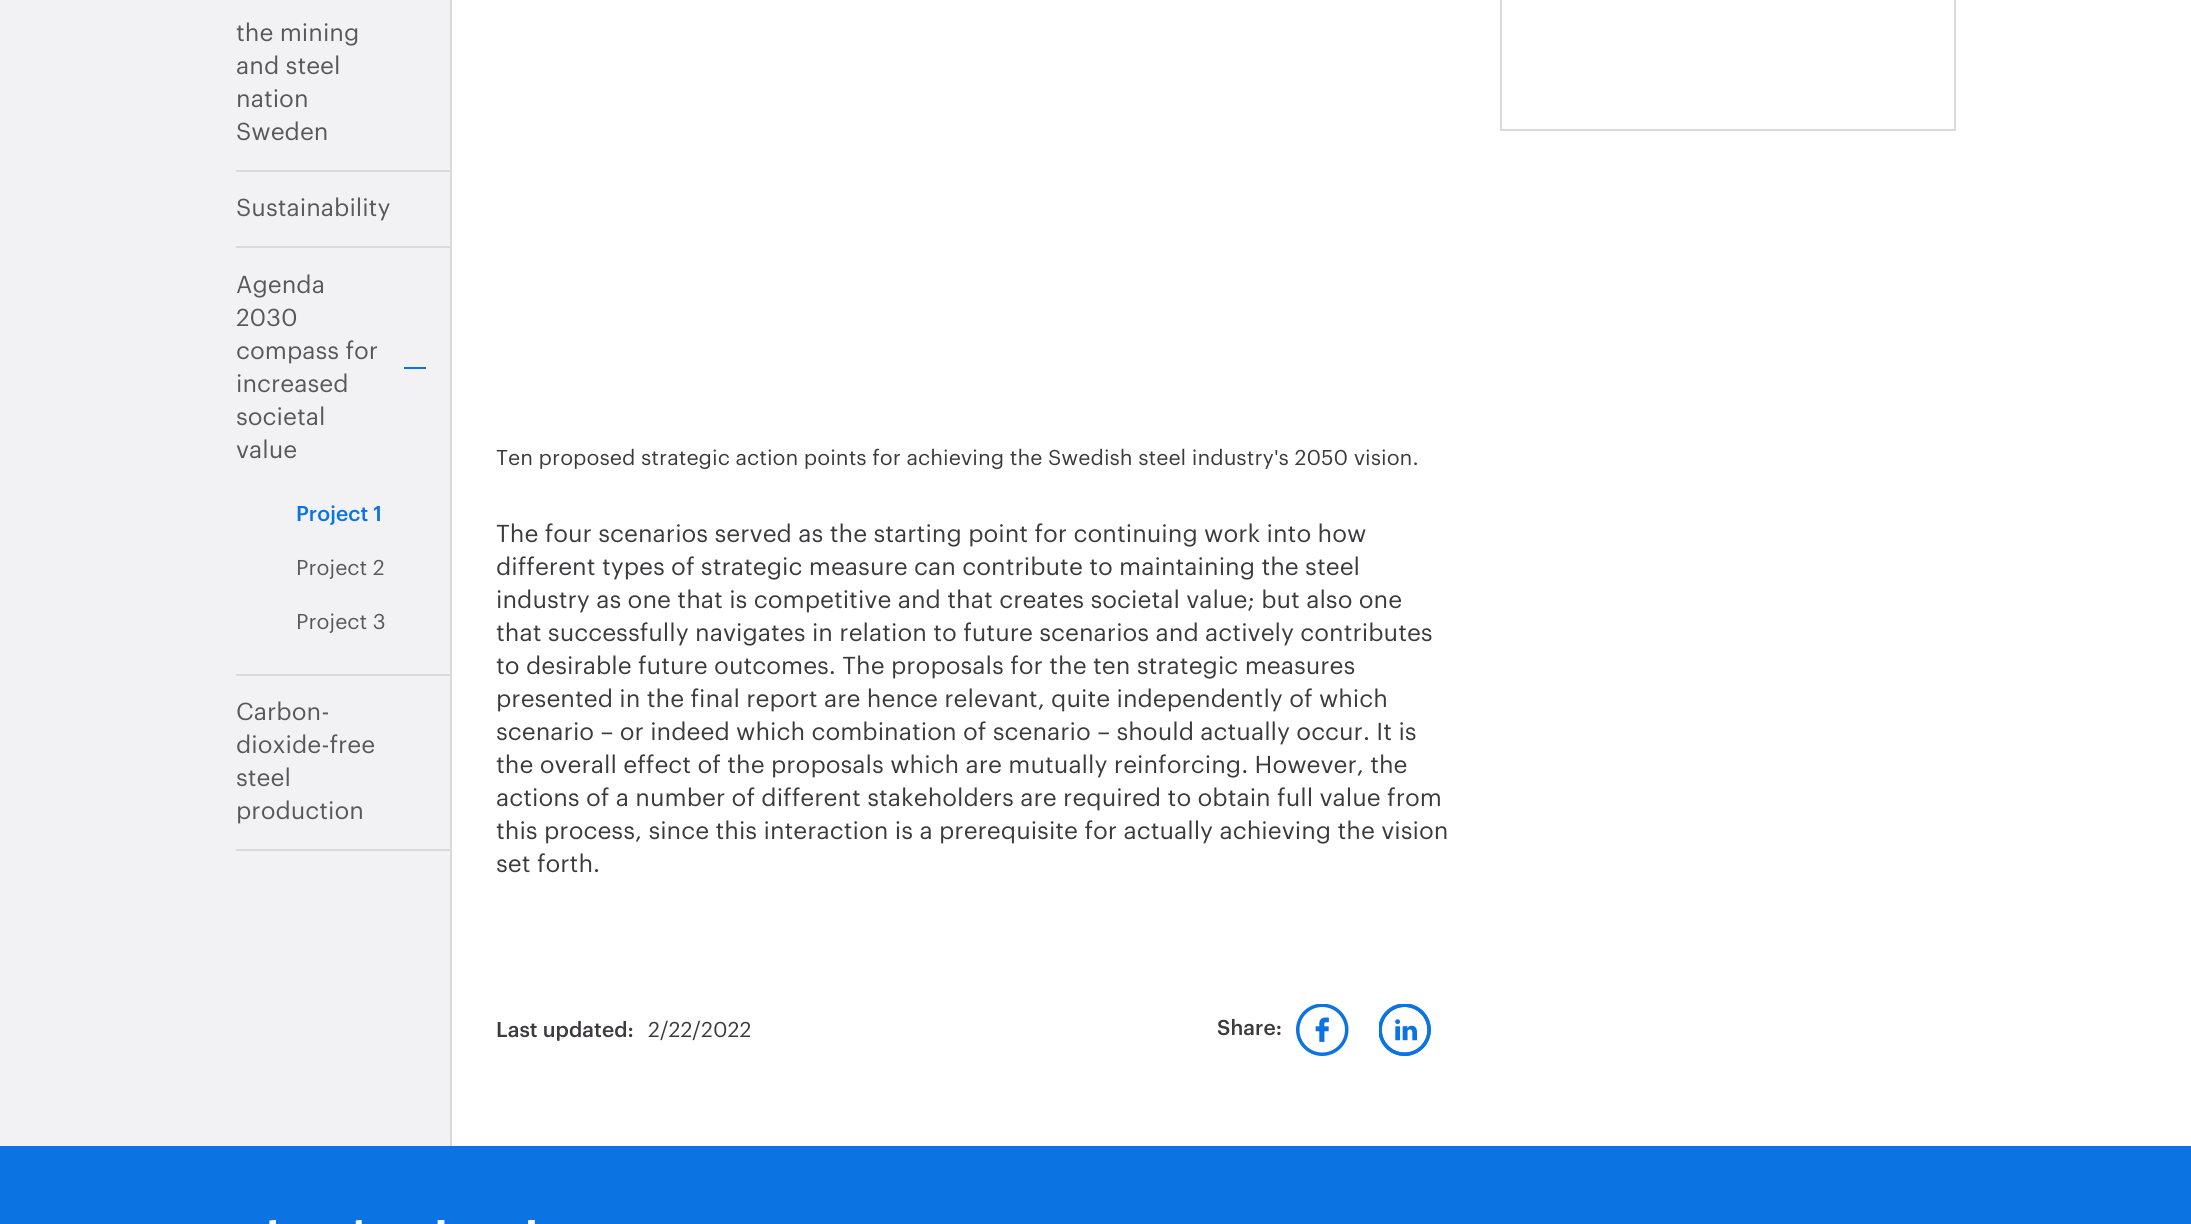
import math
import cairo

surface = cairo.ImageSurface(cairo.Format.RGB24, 2191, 1224)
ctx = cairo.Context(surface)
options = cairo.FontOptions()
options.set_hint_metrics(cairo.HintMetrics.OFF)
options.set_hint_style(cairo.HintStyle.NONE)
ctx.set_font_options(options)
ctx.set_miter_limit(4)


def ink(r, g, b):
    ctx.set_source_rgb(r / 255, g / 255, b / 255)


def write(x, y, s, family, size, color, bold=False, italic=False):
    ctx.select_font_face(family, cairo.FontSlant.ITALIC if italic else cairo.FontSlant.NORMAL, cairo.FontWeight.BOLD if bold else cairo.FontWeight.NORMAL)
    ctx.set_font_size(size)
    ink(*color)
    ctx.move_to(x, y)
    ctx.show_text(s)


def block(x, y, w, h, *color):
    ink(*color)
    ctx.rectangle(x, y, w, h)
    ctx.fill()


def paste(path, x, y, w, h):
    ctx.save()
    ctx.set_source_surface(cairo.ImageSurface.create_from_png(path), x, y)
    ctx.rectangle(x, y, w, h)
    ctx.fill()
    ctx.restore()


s1 = dict(family="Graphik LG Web", size=24, color=(88, 88, 90))
s2 = dict(family="Graphik LG Web Medium", size=21, color=(12, 115, 227))
s3 = dict(family="Graphik LG Web", size=21, color=(88, 88, 90))
s4 = dict(family="Graphik LG Web", size=21, color=(60, 58, 61))
s5 = dict(family="Graphik LG Web", size=24, color=(60, 58, 61))
s6 = dict(family="Graphik LG Web Medium", size=21, color=(60, 58, 61))

ink(255, 255, 255)
ctx.paint()
block(0, 0, 450, 1146, 242, 242, 245)
block(450, 0, 2, 1146, 218, 218, 219)
block(236, 170, 214, 2, 218, 218, 219)
write(236, 41, "the mining", **s1)
write(236, 74, "and steel", **s1)
write(236, 107, "nation", **s1)
write(236, 140, "Sweden", **s1)
block(236, 246, 214, 2, 218, 218, 219)
write(236, 216, "Sustainability", **s1)
block(236, 674, 214, 2, 218, 218, 219)
write(236, 293, "Agenda", **s1)
write(236, 326, "2030", **s1)
write(236, 359, "compass for", **s1)
write(236, 392, "increased", **s1)
write(236, 425, "societal", **s1)
write(236, 458, "value", **s1)
block(404, 367, 22, 2, 12, 115, 227)
write(296, 521, "Project 1", **s2)
write(296, 575, "Project 2", **s3)
write(296, 629, "Project 3", **s3)
block(236, 849, 214, 2, 218, 218, 219)
write(236, 720, "Carbon-", **s1)
write(236, 753, "dioxide-free", **s1)
write(236, 786, "steel", **s1)
write(236, 819, "production", **s1)
ctx.rectangle(1501, -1, 454, 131)
ink(218, 218, 219)
ctx.stroke()
write(496, 465, "Ten proposed strategic action points for achieving the Swedish steel industry's 2050 vision.", **s4)
write(496, 542, "The four scenarios served as the starting point for continuing work into how", **s5)
write(496, 575, "different types of strategic measure can contribute to maintaining the steel", **s5)
write(496, 608, "industry as one that is competitive and that creates societal value; but also one", **s5)
write(496, 641, "that successfully navigates in relation to future scenarios and actively contributes", **s5)
write(496, 674, "to desirable future outcomes. The proposals for the ten strategic measures", **s5)
write(496, 707, "presented in the final report are hence relevant, quite independently of which", **s5)
write(496, 740, "scenario – or indeed which combination of scenario – should actually occur. It is", **s5)
write(496, 773, "the overall effect of the proposals which are mutually reinforcing. However, the", **s5)
write(496, 806, "actions of a number of different stakeholders are required to obtain full value from", **s5)
write(496, 839, "this process, since this interaction is a prerequisite for actually achieving the vision", **s5)
write(496, 872, "set forth.", **s5)
write(496, 1037, "Last updated:", **s6)
write(648, 1037, "2/22/2022", **s4)
write(1217, 1035, "Share:", **s6)
paste("pic1.png", 1296, 1004, 53, 52)
paste("pic2.png", 1379, 1004, 52, 52)
block(0, 1146, 2191, 78, 12, 115, 227)
paste("pic3.png", 269, 1220, 266, 4)
surface.write_to_png("screenshot.png")
